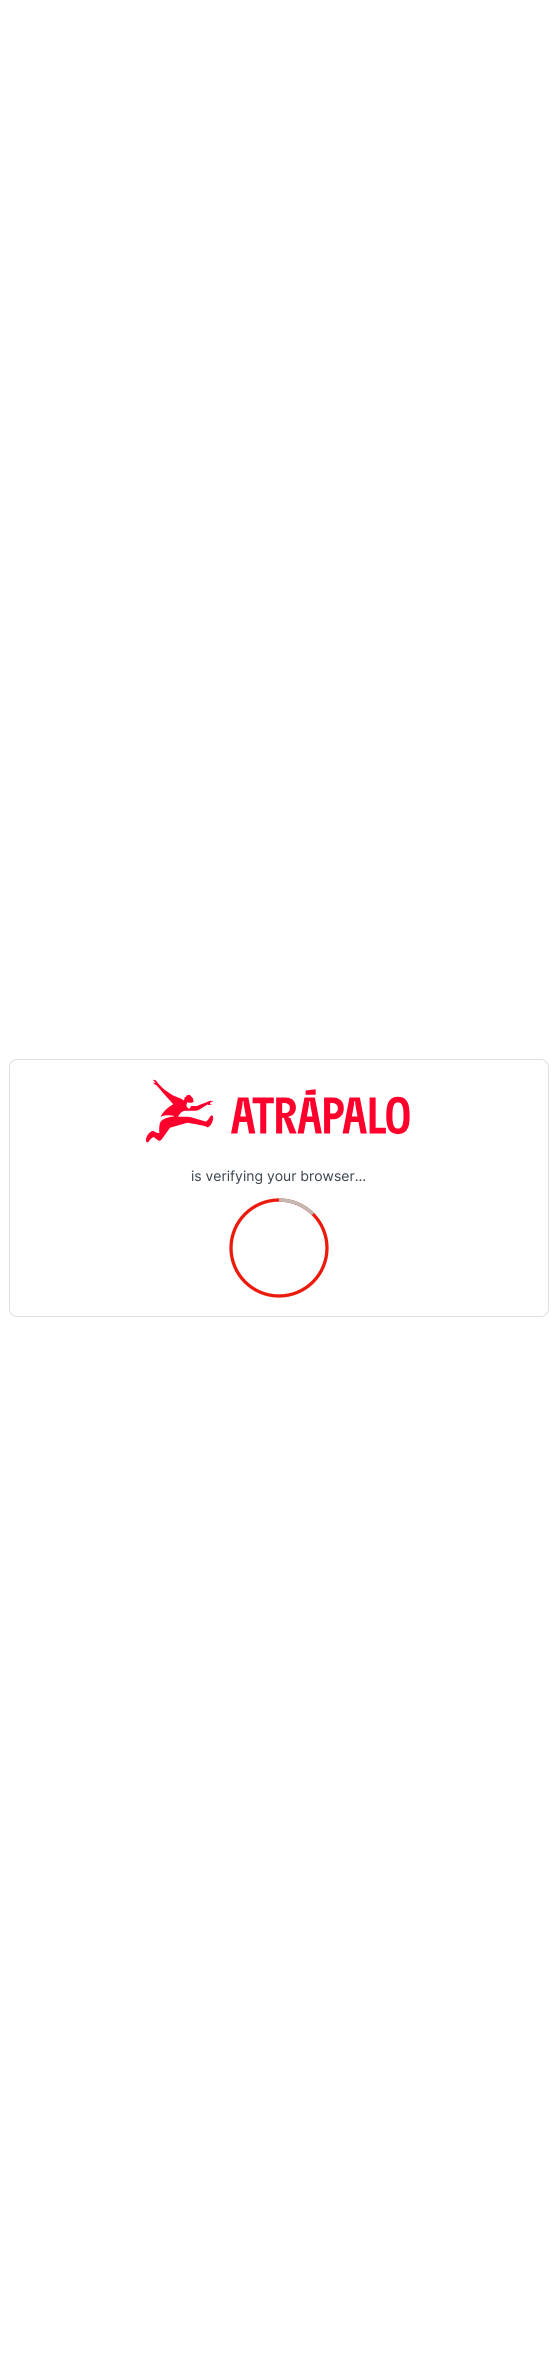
import math
import cairo

surface = cairo.ImageSurface(cairo.Format.RGB24, 558, 2376)
ctx = cairo.Context(surface)
options = cairo.FontOptions()
options.set_hint_metrics(cairo.HintMetrics.OFF)
options.set_hint_style(cairo.HintStyle.NONE)
ctx.set_font_options(options)
ctx.set_miter_limit(4)


def ink(r, g, b):
    ctx.set_source_rgb(r / 255, g / 255, b / 255)


def write(x, y, s, family, size, color, bold=False, italic=False):
    ctx.select_font_face(family, cairo.FontSlant.ITALIC if italic else cairo.FontSlant.NORMAL, cairo.FontWeight.BOLD if bold else cairo.FontWeight.NORMAL)
    ctx.set_font_size(size)
    ink(*color)
    ctx.move_to(x, y)
    ctx.show_text(s)


def round_path(x, y, w, h, r):
    ctx.new_sub_path()
    for i, (u, v) in enumerate([(x + w - r, y + h - r), (x + r, y + h - r), (x + r, y + r), (x + w - r, y + r)]):
        ctx.arc(u, v, r, i * math.pi / 2, (i + 1) * math.pi / 2)
    ctx.close_path()


def paste(path, x, y, w, h):
    ctx.save()
    ctx.set_source_surface(cairo.ImageSurface.create_from_png(path), x, y)
    ctx.rectangle(x, y, w, h)
    ctx.fill()
    ctx.restore()


s1 = dict(family="Inter", size=14, color=(58, 66, 74))

ink(255, 255, 255)
ctx.paint()
round_path(9.5, 1059.5, 539, 257, 7.5)
ink(220, 224, 228)
ctx.set_line_width(1)
ctx.stroke()
paste("pic1.png", 146, 1079, 264, 64)
write(191, 1181, "is verifying your browser...", **s1)
ctx.new_path()
ctx.move_to(231, 1248)
ctx.curve_to(231, 1221.5, 252.5, 1200, 279, 1200)
ctx.curve_to(305.5, 1200, 327, 1221.5, 327, 1248)
ctx.curve_to(327, 1274.5, 305.5, 1296, 279, 1296)
ctx.curve_to(252.5, 1296, 231, 1274.5, 231, 1248)
ctx.close_path()
ink(235, 26, 12)
ctx.set_line_width(3.3)
ctx.stroke()
ctx.new_path()
ctx.move_to(313, 1214)
ctx.curve_to(304, 1205, 292, 1200, 279, 1200)
ink(194, 186, 181)
ctx.stroke()
surface.write_to_png("screenshot.png")
